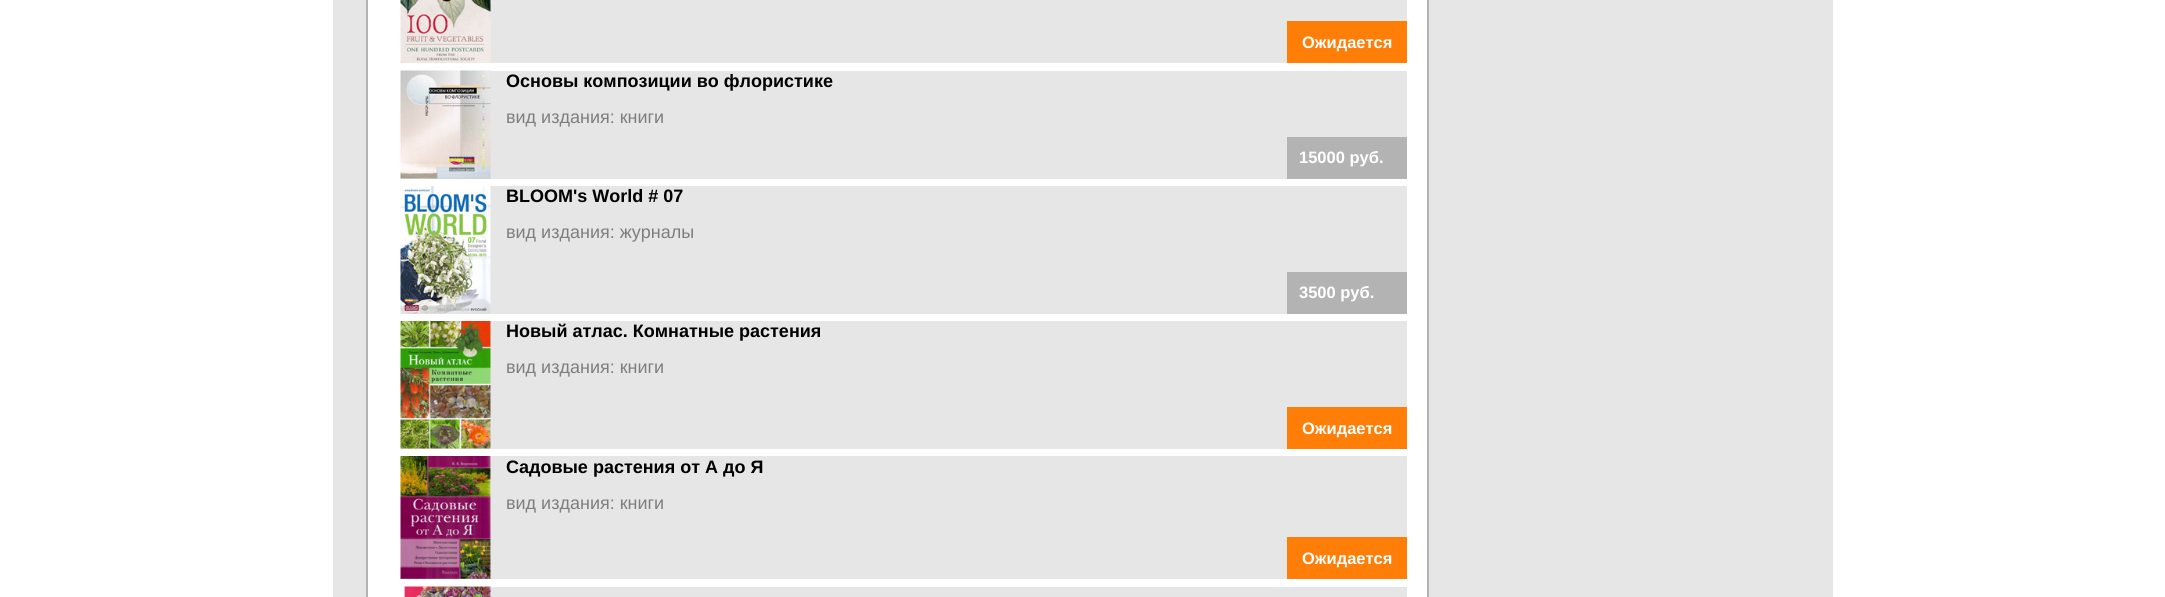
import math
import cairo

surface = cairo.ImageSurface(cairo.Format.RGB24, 2165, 597)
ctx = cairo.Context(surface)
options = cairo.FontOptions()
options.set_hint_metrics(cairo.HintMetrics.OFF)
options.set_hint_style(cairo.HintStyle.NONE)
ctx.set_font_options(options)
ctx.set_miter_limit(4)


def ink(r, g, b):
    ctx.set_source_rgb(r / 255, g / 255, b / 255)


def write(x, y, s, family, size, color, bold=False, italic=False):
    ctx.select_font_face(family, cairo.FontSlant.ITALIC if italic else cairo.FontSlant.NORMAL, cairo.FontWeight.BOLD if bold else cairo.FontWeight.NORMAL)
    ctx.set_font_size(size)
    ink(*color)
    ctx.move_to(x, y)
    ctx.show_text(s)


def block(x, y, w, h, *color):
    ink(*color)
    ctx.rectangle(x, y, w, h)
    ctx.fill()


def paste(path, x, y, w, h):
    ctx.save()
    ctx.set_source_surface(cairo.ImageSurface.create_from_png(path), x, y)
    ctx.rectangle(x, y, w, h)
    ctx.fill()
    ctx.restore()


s1 = dict(family="Liberation Sans", size=16.5, color=(255, 255, 255), bold=True)
s2 = dict(family="Liberation Sans", size=18, color=(0, 0, 0), bold=True)
s3 = dict(family="Liberation Sans", size=18, color=(126, 126, 126))

ink(255, 255, 255)
ctx.paint()
block(333, 0, 1500, 597, 230, 230, 230)
block(368, 0, 1059, 597, 255, 255, 255)
block(366, 0, 2, 597, 179, 179, 179)
block(490, 0, 917, 63, 230, 230, 230)
paste("pic1.png", 400, 0, 91, 63)
block(1287, 21, 120, 42, 255, 126, 7)
write(1302, 48, "Ожидается", **s1)
block(401, 71, 1006, 108, 230, 230, 230)
paste("pic2.png", 400, 70, 91, 109)
write(506, 87, "Основы композиции во флористике", **s2)
write(506, 123, "вид издания: книги", **s3)
block(1287, 137, 120, 42, 179, 179, 179)
write(1299, 163, "15000 руб.", **s1)
block(401, 186, 1006, 128, 230, 230, 230)
paste("pic3.png", 400, 186, 91, 128)
write(506, 202, "BLOOM's World # 07", **s2)
write(506, 238, "вид издания: журналы", **s3)
block(1287, 272, 120, 42, 179, 179, 179)
write(1299, 298, "3500 руб.", **s1)
block(401, 321, 1006, 128, 230, 230, 230)
paste("pic4.png", 400, 321, 91, 128)
write(506, 337, "Новый атлас. Комнатные растения", **s2)
write(506, 373, "вид издания: книги", **s3)
block(1287, 407, 120, 42, 255, 126, 7)
write(1302, 434, "Ожидается", **s1)
block(490, 456, 917, 123, 230, 230, 230)
paste("pic5.png", 400, 456, 91, 123)
write(506, 473, "Садовые растения от А до Я", **s2)
write(506, 509, "вид издания: книги", **s3)
block(1287, 537, 120, 42, 255, 126, 7)
write(1302, 564, "Ожидается", **s1)
block(490, 587, 917, 10, 230, 230, 230)
paste("pic6.png", 401, 586, 90, 11)
block(1427, 0, 2, 597, 179, 179, 179)
surface.write_to_png("screenshot.png")
